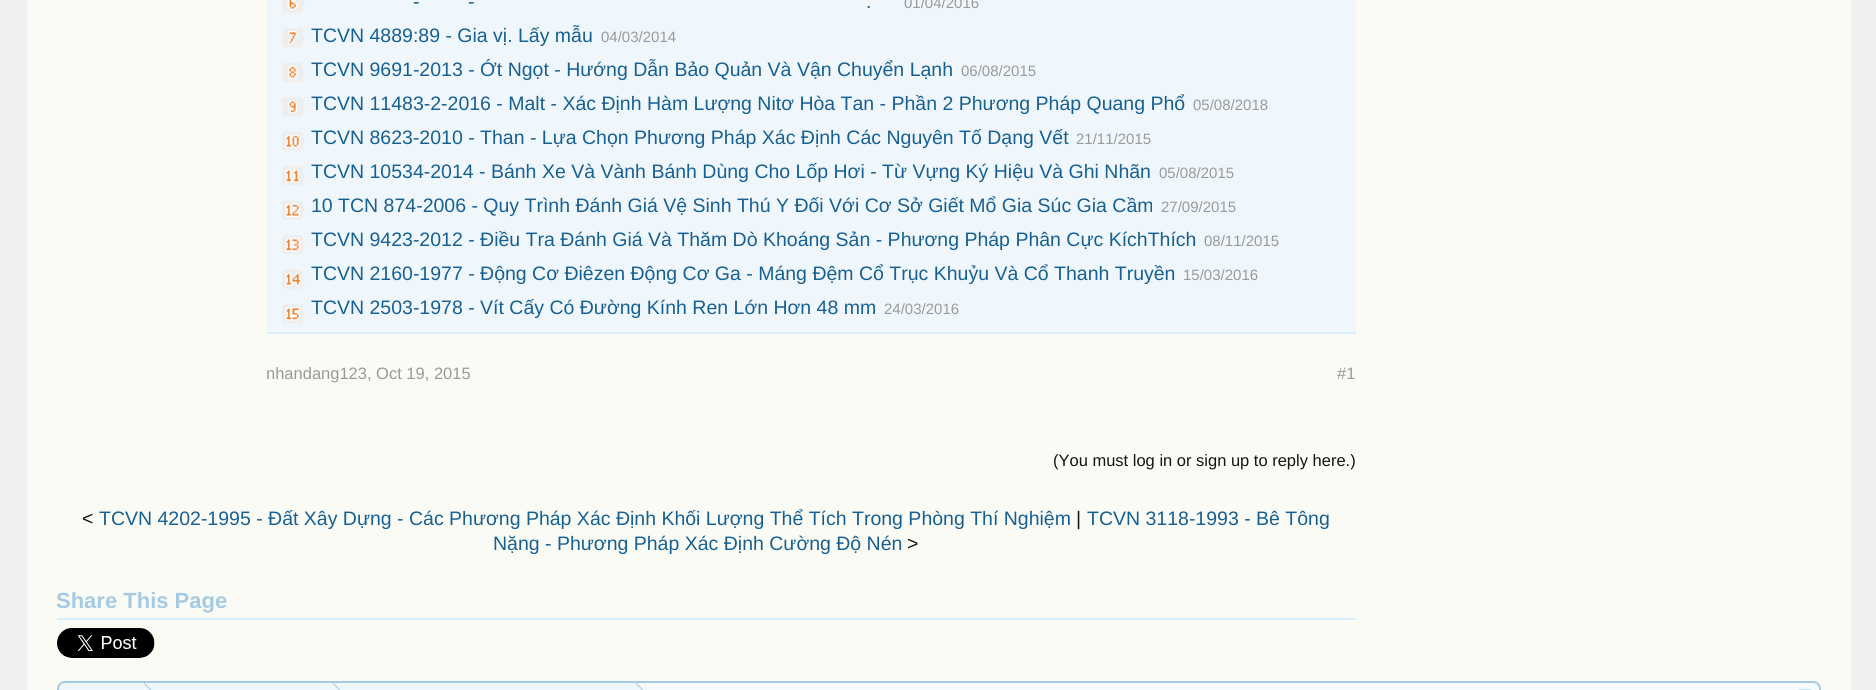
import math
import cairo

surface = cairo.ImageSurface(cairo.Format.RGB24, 1876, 690)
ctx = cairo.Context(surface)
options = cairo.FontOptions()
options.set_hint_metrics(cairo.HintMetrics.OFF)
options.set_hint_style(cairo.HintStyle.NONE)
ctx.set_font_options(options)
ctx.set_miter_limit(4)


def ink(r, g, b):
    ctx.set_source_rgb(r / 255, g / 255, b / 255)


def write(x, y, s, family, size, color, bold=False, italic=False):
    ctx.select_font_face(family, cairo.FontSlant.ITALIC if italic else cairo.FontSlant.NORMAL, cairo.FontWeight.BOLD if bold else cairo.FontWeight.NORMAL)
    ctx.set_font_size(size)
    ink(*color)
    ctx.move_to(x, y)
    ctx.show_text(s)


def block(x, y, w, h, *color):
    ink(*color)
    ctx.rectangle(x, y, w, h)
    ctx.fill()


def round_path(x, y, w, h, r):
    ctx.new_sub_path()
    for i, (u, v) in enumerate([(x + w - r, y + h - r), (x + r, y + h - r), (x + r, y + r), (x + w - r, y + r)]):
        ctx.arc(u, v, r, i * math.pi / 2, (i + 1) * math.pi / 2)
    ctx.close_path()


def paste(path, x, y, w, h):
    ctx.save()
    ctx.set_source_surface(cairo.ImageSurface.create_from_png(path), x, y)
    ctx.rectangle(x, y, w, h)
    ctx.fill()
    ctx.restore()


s1 = dict(family="Liberation Sans", size=19.5, color=(23, 96, 147))
s2 = dict(family="Liberation Sans", size=15, color=(153, 153, 153))
s3 = dict(family="Liberation Sans", size=16.5, color=(153, 153, 153))
s4 = dict(family="Liberation Sans", size=16.5, color=(20, 20, 20))
s5 = dict(family="Liberation Sans", size=19.5, color=(20, 20, 20))
s6 = dict(family="Liberation Sans", size=22, color=(165, 202, 228), bold=True)

ink(240, 240, 240)
ctx.paint()
block(27, 0, 1824, 690, 251, 251, 245)
block(267, 0, 1089, 332, 240, 247, 252)
paste("pic1.png", 282, 0, 24, 324)
block(267, 332, 1089, 2, 215, 237, 252)
write(413, 8, "-", **s1)
write(468, 8, "-", **s1)
write(904, 8, "01/04/2016", **s2)
write(866, 8, ".", **s1)
write(311, 42, "TCVN 4889:89 - Gia vị. Lấy mẫu", **s1)
write(601, 42, "04/03/2014", **s2)
write(311, 76, "TCVN 9691-2013 - Ớt Ngọt - Hướng Dẫn Bảo Quản Và Vận Chuyển Lạnh", **s1)
write(961, 76, "06/08/2015", **s2)
write(311, 110, "TCVN 11483-2-2016 - Malt - Xác Định Hàm Lượng Nitơ Hòa Tan - Phần 2 Phương Pháp Quang Phổ", **s1)
write(1193, 110, "05/08/2018", **s2)
write(311, 144, "TCVN 8623-2010 - Than - Lựa Chọn Phương Pháp Xác Định Các Nguyên Tố Dạng Vết", **s1)
write(1076, 144, "21/11/2015", **s2)
write(311, 178, "TCVN 10534-2014 - Bánh Xe Và Vành Bánh Dùng Cho Lốp Hơi - Từ Vựng Ký Hiệu Và Ghi Nhãn", **s1)
write(1159, 178, "05/08/2015", **s2)
write(311, 212, "10 TCN 874-2006 - Quy Trình Đánh Giá Vệ Sinh Thú Y Đối Với Cơ Sở Giết Mổ Gia Súc Gia Cầm", **s1)
write(1161, 212, "27/09/2015", **s2)
write(311, 246, "TCVN 9423-2012 - Điều Tra Đánh Giá Và Thăm Dò Khoáng Sản - Phương Pháp Phân Cực KíchThích", **s1)
write(1204, 246, "08/11/2015", **s2)
write(311, 280, "TCVN 2160-1977 - Động Cơ Điêzen Động Cơ Ga - Máng Đệm Cổ Trục Khuỷu Và Cổ Thanh Truyền", **s1)
write(1183, 280, "15/03/2016", **s2)
write(311, 314, "TCVN 2503-1978 - Vít Cấy Có Đường Kính Ren Lớn Hơn 48 mm", **s1)
write(884, 314, "24/03/2016", **s2)
write(266, 379, "nhandang123, Oct 19, 2015", **s3)
write(1337, 379, "#1", **s3)
write(1053, 466, "(You must log in or sign up to reply here.)", **s4)
write(82, 525, "<", **s5)
write(99, 525, "TCVN 4202-1995 - Đất Xây Dựng - Các Phương Pháp Xác Định Khối Lượng Thể Tích Trong Phòng Thí Nghiệm", **s1)
write(1076, 525, "|", **s5)
write(1087, 525, "TCVN 3118-1993 - Bê Tông", **s1)
write(493, 550, "Nặng - Phương Pháp Xác Định Cường Độ Nén", **s1)
write(907, 550, ">", **s5)
block(57, 618, 1299, 2, 215, 237, 252)
write(56, 608, "Share This Page", **s6)
paste("pic2.png", 57, 628, 98, 30)
ink(240, 247, 252)
round_path(57, 681, 1764, 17, 8)
ctx.fill()
paste("pic3.png", 57, 682, 1764, 8)
round_path(58, 682, 1762, 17, 7)
ink(165, 202, 228)
ctx.stroke()
ink(240, 247, 252)
ctx.new_path()
ctx.move_to(67, 683)
ctx.line_to(144, 683)
ctx.line_to(144, 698)
ctx.line_to(67, 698)
ctx.curve_to(62.5, 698, 59, 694.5, 59, 690)
ctx.line_to(59, 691)
ctx.curve_to(59, 686.5, 62.5, 683, 67, 683)
ctx.close_path()
ctx.fill()
block(144, 683, 492, 7, 240, 247, 252)
ink(165, 202, 228)
ctx.new_path()
ctx.move_to(144, 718.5)
ctx.line_to(144, 682.5)
ctx.line_to(162, 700.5)
ctx.close_path()
ctx.fill()
ink(240, 247, 252)
ctx.new_path()
ctx.move_to(142.5, 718.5)
ctx.line_to(142.5, 682.5)
ctx.line_to(160.5, 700.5)
ctx.close_path()
ctx.fill()
ink(165, 202, 228)
ctx.new_path()
ctx.move_to(333, 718.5)
ctx.line_to(333, 682.5)
ctx.line_to(351, 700.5)
ctx.close_path()
ctx.fill()
ink(240, 247, 252)
ctx.new_path()
ctx.move_to(331.5, 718.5)
ctx.line_to(331.5, 682.5)
ctx.line_to(349.5, 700.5)
ctx.close_path()
ctx.fill()
ink(165, 202, 228)
ctx.new_path()
ctx.move_to(636, 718.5)
ctx.line_to(636, 682.5)
ctx.line_to(654, 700.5)
ctx.close_path()
ctx.fill()
ink(240, 247, 252)
ctx.new_path()
ctx.move_to(634.5, 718.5)
ctx.line_to(634.5, 682.5)
ctx.line_to(652.5, 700.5)
ctx.close_path()
ctx.fill()
paste("pic4.png", 1797, 689, 15, 1)
surface.write_to_png("screenshot.png")
